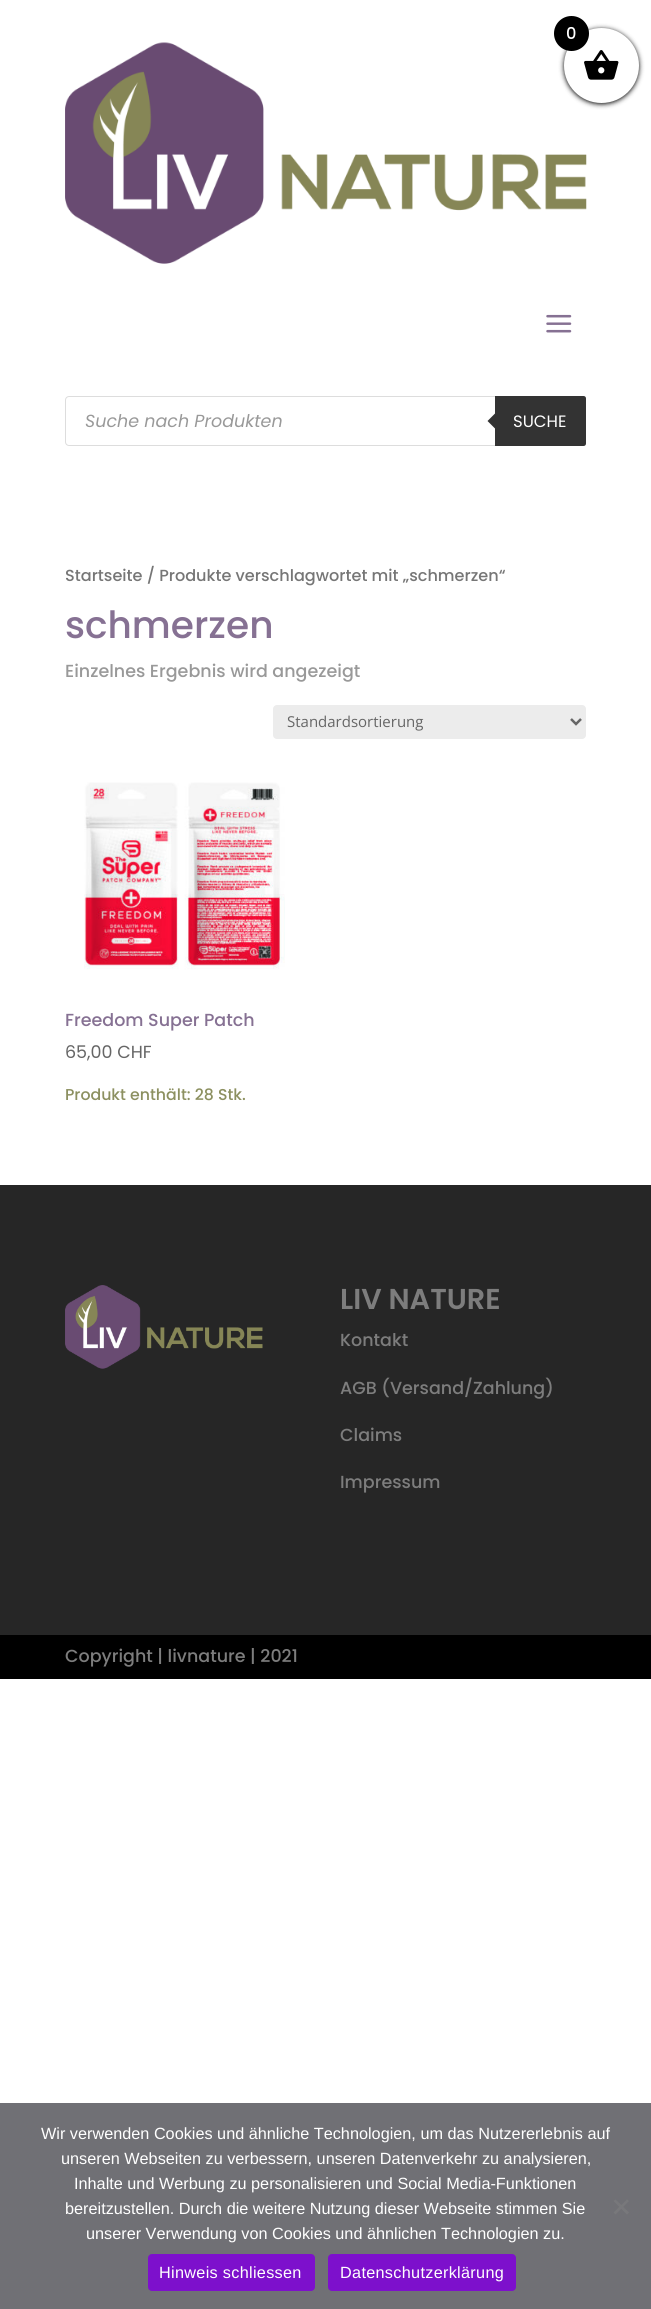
import math
import cairo

surface = cairo.ImageSurface(cairo.Format.RGB24, 651, 2309)
ctx = cairo.Context(surface)
options = cairo.FontOptions()
options.set_hint_metrics(cairo.HintMetrics.OFF)
options.set_hint_style(cairo.HintStyle.NONE)
ctx.set_font_options(options)
ctx.set_miter_limit(4)


def ink(r, g, b):
    ctx.set_source_rgb(r / 255, g / 255, b / 255)


def write(x, y, s, family, size, color, bold=False, italic=False):
    ctx.select_font_face(family, cairo.FontSlant.ITALIC if italic else cairo.FontSlant.NORMAL, cairo.FontWeight.BOLD if bold else cairo.FontWeight.NORMAL)
    ctx.set_font_size(size)
    ink(*color)
    ctx.move_to(x, y)
    ctx.show_text(s)


def write_spaced(x, y, s, letter, word):
    ctx.move_to(x, y)
    for ch in s:
        ctx.show_text(ch)
        ctx.rel_move_to(letter + word * (ch == ' '), 0)


def block(x, y, w, h, *color):
    ink(*color)
    ctx.rectangle(x, y, w, h)
    ctx.fill()


def round_path(x, y, w, h, r):
    ctx.new_sub_path()
    for i, (u, v) in enumerate([(x + w - r, y + h - r), (x + r, y + h - r), (x + r, y + r), (x + w - r, y + r)]):
        ctx.arc(u, v, r, i * math.pi / 2, (i + 1) * math.pi / 2)
    ctx.close_path()


def blur_box(x, y, w, h, r, blur, alpha):
    ctx.push_group_with_content(cairo.Content.ALPHA)
    ctx.set_operator(cairo.Operator.SOURCE)
    for i in range(15, -16, -2):
        e = blur * i / 6
        if min(w, h) + 2 * e > 0:
            ctx.set_source_rgba(0, 0, 0, alpha * math.erfc((i - 1) / 8.5) / 2)
            round_path(x - e, y - e, w + 2 * e, h + 2 * e, max(0, min(r + e + blur * .6, min(w, h) / 2 + e)))
            ctx.fill()
    ctx.mask(ctx.pop_group())


def paste(path, x, y, w, h):
    ctx.save()
    ctx.set_source_surface(cairo.ImageSurface.create_from_png(path), x, y)
    ctx.rectangle(x, y, w, h)
    ctx.fill()
    ctx.restore()


s1 = dict(family="Poppins Medium", size=16.25, color=(255, 255, 255))
s2 = dict(family="Poppins", size=17.5, color=(153, 153, 153), italic=True)
s3 = dict(family="Poppins", size=16.5, color=(255, 255, 255))
s4 = dict(family="Poppins Medium", size=16.1, color=(118, 118, 118))
s5 = dict(family="Poppins Medium", size=37.5, color=(134, 113, 147))
s6 = dict(family="Poppins Medium", size=17.5, color=(153, 153, 153))
s7 = dict(family="Open Sans", size=15, color=(102, 102, 102))
s8 = dict(family="Poppins Medium", size=17.5, color=(134, 113, 147))
s9 = dict(family="Poppins", size=17.5, color=(102, 102, 102))
s10 = dict(family="Poppins Medium", size=15.75, color=(140, 144, 96))
s11 = dict(family="Poppins SemiBold", size=28.75, color=(125, 125, 125))
s12 = dict(family="Poppins Medium", size=17.5, color=(125, 125, 125))
s13 = dict(family="Liberation Sans", size=16.25, color=(255, 255, 255))

ink(255, 255, 255)
ctx.paint()
paste("pic2.png", 65, 42, 522, 222)
ink(0, 0, 0)
blur_box(564, 29, 75, 75, 37.5, 2.5, 1)
ink(255, 255, 255)
ctx.arc(601.5, 65.5, 37.5, 0, 2 * math.pi)
ctx.fill()
paste("pic1.png", 584, 50, 35, 30)
ink(0, 0, 0)
ctx.arc(571.5, 33.5, 17.5, 0, 2 * math.pi)
ctx.fill()
write(566, 39, "0", **s1)
paste("pic3.png", 546, 314, 26, 19)
round_path(65.5, 396.5, 520, 49, 3.5)
ink(221, 221, 221)
ctx.set_line_width(1)
ctx.stroke()
write(85, 427, "Suche nach Produkten", **s2)
ink(51, 51, 51)
ctx.new_path()
ctx.move_to(495, 396)
ctx.line_to(583.5, 396)
ctx.curve_to(585, 396, 586, 397, 586, 398.5)
ctx.line_to(586, 443.5)
ctx.curve_to(586, 445, 585, 446, 583.5, 446)
ctx.line_to(495, 446)
ctx.close_path()
ctx.fill()
ctx.new_path()
ctx.move_to(497.5, 411)
ctx.line_to(497.5, 431)
ctx.line_to(487.5, 421)
ctx.close_path()
ctx.fill()
write(513, 427, "SUCHE", **s3)
write(65, 581, "Startseite / Produkte verschlagwortet mit „schmerzen“", **s4)
write(65, 638, "schmerzen", **s5)
write(65, 677, "Einzelnes Ergebnis wird angezeigt", **s6)
ink(236, 236, 236)
round_path(273, 705, 313, 34, 4)
ctx.fill()
ctx.new_path()
ctx.move_to(571, 719)
ctx.line_to(576, 724)
ctx.line_to(581, 719)
ink(102, 102, 102)
ctx.set_line_width(2.5)
ctx.stroke()
write(287, 727, "Standardsortierung", **s7)
paste("pic4.png", 84, 782, 201, 188)
write(65, 1026, "Freedom Super Patch", **s8)
write(65, 1058, "65,00 CHF", **s9)
write(65, 1100, "Produkt enthält: 28 Stk.", **s10)
block(0, 1185, 651, 450, 38, 38, 38)
paste("pic5.png", 65, 1285, 198, 84)
write(340, 1309, "LIV NATURE", **s11)
write(340, 1346, "Kontakt", **s12)
write(340, 1394, "AGB (Versand/Zahlung)", **s12)
write(340, 1441, "Claims", **s12)
write(340, 1488, "Impressum", **s12)
block(0, 1635, 651, 44, 0, 0, 0)
write(65, 1662, "Copyright | livnature | 2021", **s12)
block(0, 2103, 651, 206, 112, 112, 117)
write(41, 2139, "Wir verwenden Cookies und ähnliche Technologien, um das Nutzererlebnis auf", **s13)
write(61, 2164, "unseren Webseiten zu verbessern, unseren Datenverkehr zu analysieren,", **s13)
write(74, 2189, "Inhalte und Werbung zu personalisieren und Social Media-Funktionen", **s13)
write(65, 2214, "bereitzustellen. Durch die weitere Nutzung dieser Webseite stimmen Sie", **s13)
write(86, 2239, "unserer Verwendung von Cookies und ähnlichen Technologien zu.", **s13)
ink(120, 120, 123)
ctx.new_path()
ctx.move_to(627, 2199.5)
ctx.line_to(629, 2201)
ctx.line_to(615.5, 2214.5)
ctx.line_to(613.5, 2212.5)
ctx.close_path()
ctx.fill()
ctx.new_path()
ctx.move_to(613.5, 2201)
ctx.line_to(615.5, 2199.5)
ctx.line_to(629, 2212.5)
ctx.line_to(627, 2214.5)
ctx.close_path()
ctx.fill()
ink(125, 16, 204)
round_path(148, 2254, 167, 37, 4)
ctx.fill()
ink(255, 255, 255)
write_spaced(159, 2278, "Hinweis schliessen", 0.3, 0)
ink(125, 16, 204)
round_path(328, 2254, 188, 37, 4)
ctx.fill()
ink(255, 255, 255)
write_spaced(340, 2278, "Datenschutzerklärung", 0.3, 0)
surface.write_to_png("screenshot.png")
